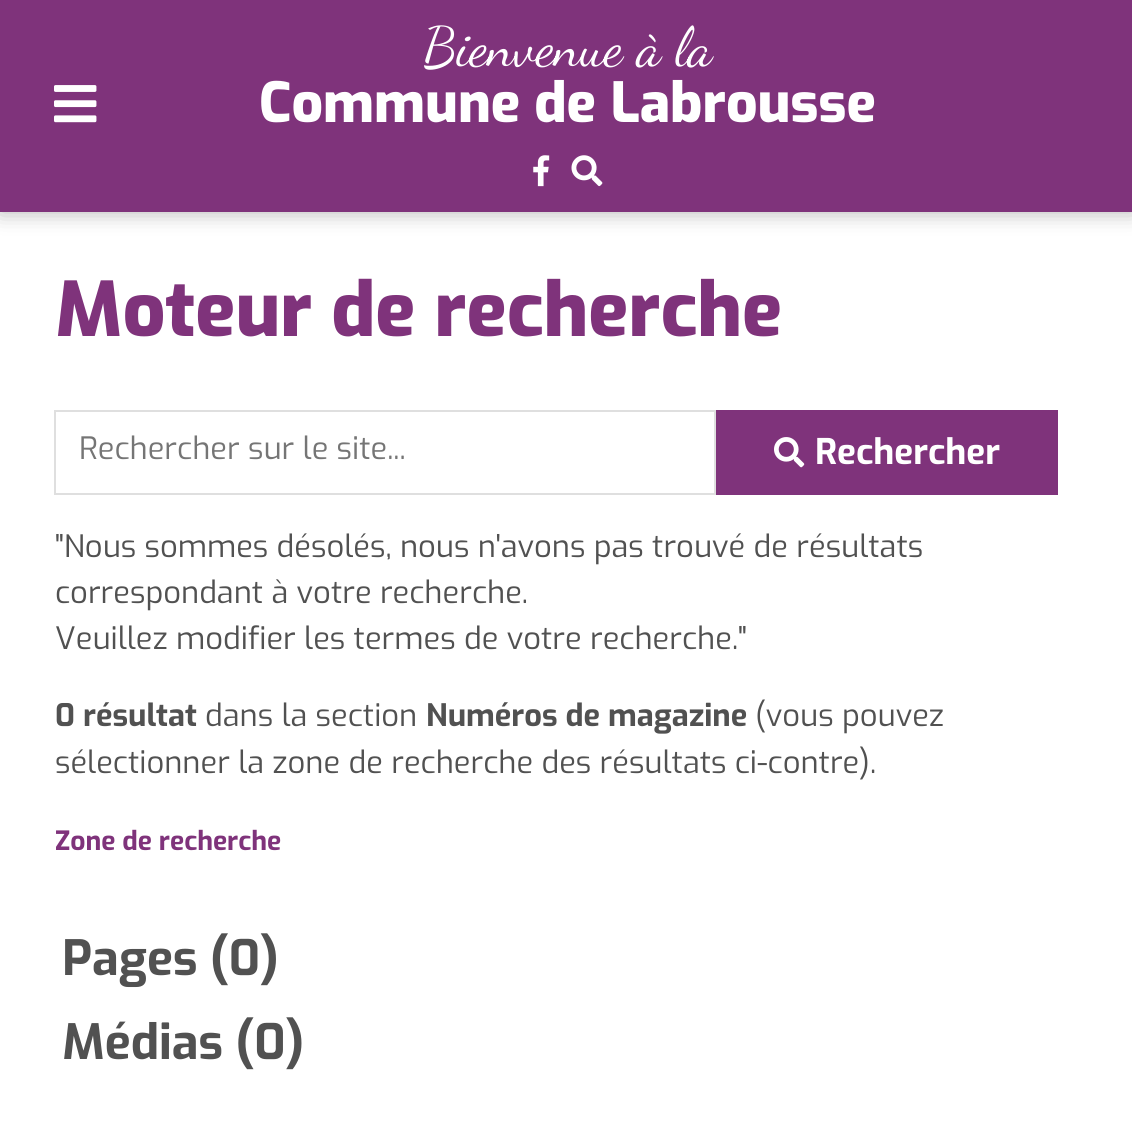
import math
import cairo

surface = cairo.ImageSurface(cairo.Format.RGB24, 1132, 1124)
ctx = cairo.Context(surface)
options = cairo.FontOptions()
options.set_hint_metrics(cairo.HintMetrics.OFF)
options.set_hint_style(cairo.HintStyle.NONE)
ctx.set_font_options(options)
ctx.set_miter_limit(4)


def ink(r, g, b):
    ctx.set_source_rgb(r / 255, g / 255, b / 255)


def write(x, y, s, family, size, color, bold=False, italic=False):
    ctx.select_font_face(family, cairo.FontSlant.ITALIC if italic else cairo.FontSlant.NORMAL, cairo.FontWeight.BOLD if bold else cairo.FontWeight.NORMAL)
    ctx.set_font_size(size)
    ink(*color)
    ctx.move_to(x, y)
    ctx.show_text(s)


def block(x, y, w, h, *color):
    ink(*color)
    ctx.rectangle(x, y, w, h)
    ctx.fill()


def round_path(x, y, w, h, r):
    ctx.new_sub_path()
    for i, (u, v) in enumerate([(x + w - r, y + h - r), (x + r, y + h - r), (x + r, y + r), (x + w - r, y + r)]):
        ctx.arc(u, v, r, i * math.pi / 2, (i + 1) * math.pi / 2)
    ctx.close_path()


def blur_box(x, y, w, h, r, blur, alpha):
    ctx.push_group_with_content(cairo.Content.ALPHA)
    ctx.set_operator(cairo.Operator.SOURCE)
    for i in range(15, -16, -2):
        e = blur * i / 6
        if min(w, h) + 2 * e > 0:
            ctx.set_source_rgba(0, 0, 0, alpha * math.erfc((i - 1) / 8.5) / 2)
            round_path(x - e, y - e, w + 2 * e, h + 2 * e, max(0, min(r + e + blur * .6, min(w, h) / 2 + e)))
            ctx.fill()
    ctx.mask(ctx.pop_group())


def paste(path, x, y, w, h):
    ctx.save()
    ctx.set_source_surface(cairo.ImageSurface.create_from_png(path), x, y)
    ctx.rectangle(x, y, w, h)
    ctx.fill()
    ctx.restore()


s1 = dict(family="Dancing Script", size=55.1, color=(255, 255, 255))
s2 = dict(family="Exo ExtraBold", size=55.1, color=(255, 255, 255))
s3 = dict(family="Exo ExtraBold", size=75, color=(127, 51, 123))
s4 = dict(family="Exo", size=30.85, color=(117, 117, 117))
s5 = dict(family="Exo", size=35.25, color=(255, 255, 255), bold=True)
s6 = dict(family="Exo", size=30.85, color=(81, 81, 81))
s7 = dict(family="Exo", size=30.85, color=(81, 81, 81), bold=True)
s8 = dict(family="Exo", size=26.5, color=(127, 51, 123), bold=True)
s9 = dict(family="Exo", size=48.5, color=(81, 81, 81), bold=True)

ink(255, 255, 255)
ctx.paint()
ink(0, 0, 0)
blur_box(0, 0, 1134, 212, 0, 11, 0.3)
block(0, 0, 1132, 212, 127, 51, 123)
paste("pic1.png", 54, 85, 43, 38)
write(423, 65, "Bienvenue à la", **s1)
write(259, 122, "Commune de Labrousse", **s2)
paste("pic2.png", 533, 155, 17, 32)
paste("pic3.png", 571, 155, 32, 32)
write(55, 336, "Moteur de recherche", **s3)
ctx.rectangle(55, 411, 660, 83)
ink(223, 223, 223)
ctx.stroke()
write(79, 459, "Rechercher sur le site...", **s4)
block(716, 410, 342, 85, 127, 51, 123)
paste("pic4.png", 774, 437, 31, 31)
write(815, 464, "Rechercher", **s5)
write(55, 557, "\"Nous sommes désolés, nous n'avons pas trouvé de résultats", **s6)
write(55, 603, "correspondant à votre recherche.", **s6)
write(55, 649, "Veuillez modifier les termes de votre recherche.\"", **s6)
write(55, 726, "0 résultat", **s7)
write(205, 726, "dans la section", **s6)
write(426, 726, "Numéros de magazine", **s7)
write(755, 726, "(vous pouvez", **s6)
write(55, 773, "sélectionner la zone de recherche des résultats ci-contre).", **s6)
write(55, 850, "Zone de recherche", **s8)
write(62, 975, "Pages (0)", **s9)
write(62, 1059, "Médias (0)", **s9)
surface.write_to_png("screenshot.png")
